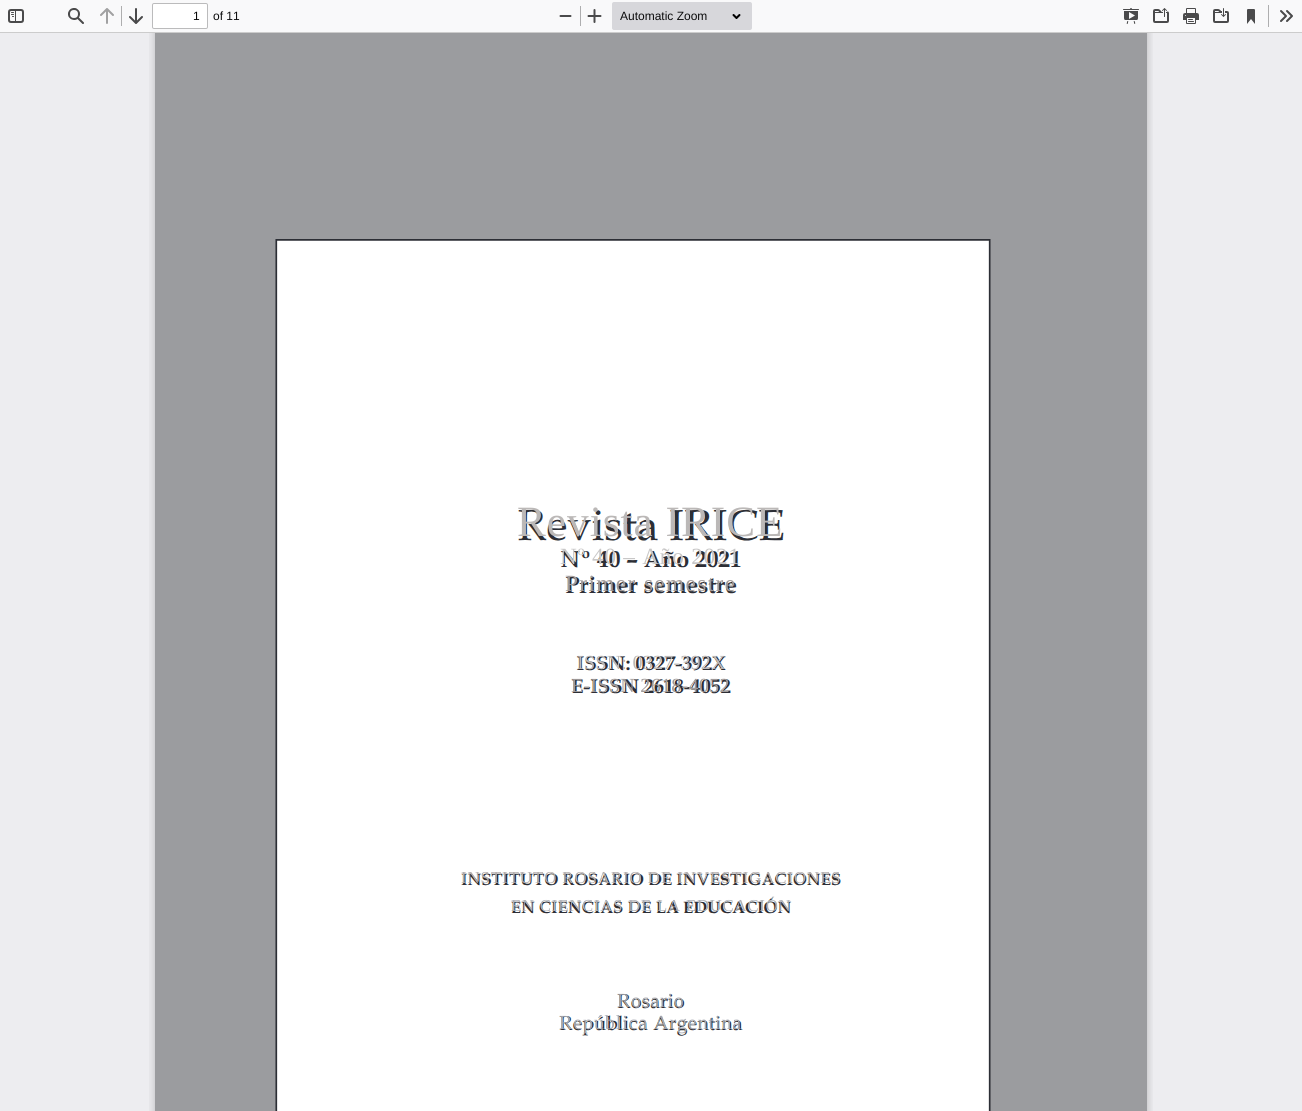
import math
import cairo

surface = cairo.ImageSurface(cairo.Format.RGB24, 1302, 1111)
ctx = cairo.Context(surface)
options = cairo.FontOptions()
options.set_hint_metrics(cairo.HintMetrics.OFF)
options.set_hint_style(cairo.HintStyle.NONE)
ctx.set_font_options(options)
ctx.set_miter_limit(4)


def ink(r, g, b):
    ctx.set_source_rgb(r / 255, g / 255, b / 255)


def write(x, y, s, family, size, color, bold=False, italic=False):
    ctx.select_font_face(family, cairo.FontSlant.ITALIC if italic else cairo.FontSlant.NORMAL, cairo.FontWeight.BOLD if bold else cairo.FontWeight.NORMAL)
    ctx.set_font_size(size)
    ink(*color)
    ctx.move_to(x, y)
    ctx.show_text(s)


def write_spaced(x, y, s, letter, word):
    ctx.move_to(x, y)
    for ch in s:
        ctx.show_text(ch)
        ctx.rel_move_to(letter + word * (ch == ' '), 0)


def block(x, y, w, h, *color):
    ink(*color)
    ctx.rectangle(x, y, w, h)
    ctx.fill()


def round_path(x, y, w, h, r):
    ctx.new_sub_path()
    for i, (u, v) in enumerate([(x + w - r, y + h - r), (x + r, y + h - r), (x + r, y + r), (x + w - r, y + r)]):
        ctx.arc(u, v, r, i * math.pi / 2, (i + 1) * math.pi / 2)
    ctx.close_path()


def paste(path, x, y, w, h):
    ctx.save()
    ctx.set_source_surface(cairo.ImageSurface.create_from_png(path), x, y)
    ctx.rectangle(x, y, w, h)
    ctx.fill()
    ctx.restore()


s1 = dict(family="Liberation Sans", size=12, color=(6, 6, 6))
s2 = dict(family="Liberation Sans", size=12, color=(12, 12, 13))

ink(237, 237, 240)
ctx.paint()
block(0, 32, 1302, 1, 204, 204, 204)
block(0, 0, 1302, 32, 249, 249, 250)
paste("pic1.png", 8, 9, 16, 14)
paste("pic2.png", 68, 8, 16, 16)
paste("pic3.png", 100, 8, 14, 16)
block(121, 6, 1, 20, 174, 174, 175)
paste("pic4.png", 129, 8, 14, 16)
ink(255, 255, 255)
round_path(152.5, 3.5, 55, 25, 1.5)
ctx.fill_preserve()
ink(187, 187, 188)
ctx.set_line_width(1)
ctx.stroke()
write(193, 20, "1", **s1)
write(213, 20, "of 11", **s2)
paste("pic5.png", 559, 15, 13, 2)
block(580, 6, 1, 20, 174, 174, 175)
paste("pic6.png", 587, 9, 15, 14)
ink(215, 215, 219)
round_path(612, 2, 140, 28, 2)
ctx.fill()
write(620, 20, "Automatic Zoom", **s2)
paste("pic7.png", 732, 14, 9, 5)
paste("pic8.png", 1123, 8, 16, 16)
paste("pic9.png", 1153, 8, 16, 15)
paste("pic10.png", 1183, 8, 16, 16)
paste("pic11.png", 1213, 8, 16, 15)
paste("pic12.png", 1247, 9, 8, 15)
block(1268, 5, 1, 22, 174, 174, 175)
paste("pic13.png", 1280, 10, 13, 12)
paste("pic14.png", 149, 33, 1004, 1078)
paste("pic15.png", 155, 33, 992, 1078)
ctx.select_font_face("Liberation Serif")
ctx.set_font_size(43.25)
ink(187, 184, 183)
write_spaced(517, 536, "Revista IRICE", 1, 0)
ctx.set_font_size(23.25)
ink(200, 199, 199)
write_spaced(560, 564, "Nº 40 – Año 2021", 0.75, 0)
ink(160, 154, 153)
write_spaced(565, 591, "Primer semestre", 1.4, 0)
ctx.set_font_size(20)
ink(187, 184, 183)
write_spaced(577, 669, "ISSN: 0327-392X", 0.25, 0)
ink(160, 154, 153)
write_spaced(571, 692, "E-ISSN 2618-4052", 0.3, 0)
ctx.set_font_size(16.7)
ink(177, 171, 170)
write_spaced(461, 883, "INSTITUTO ROSARIO DE INVESTIGACIONES", 1, 0)
ink(172, 175, 181)
write_spaced(511, 911, "EN CIENCIAS DE LA EDUCACIÓN", 0.8, 0)
ctx.set_font_size(20)
ink(156, 157, 164)
write_spaced(617, 1007, "Rosario", 0.75, 0)
ink(163, 166, 175)
write_spaced(559, 1029, "República Argentina", 0.9, 0)
surface.write_to_png("screenshot.png")
